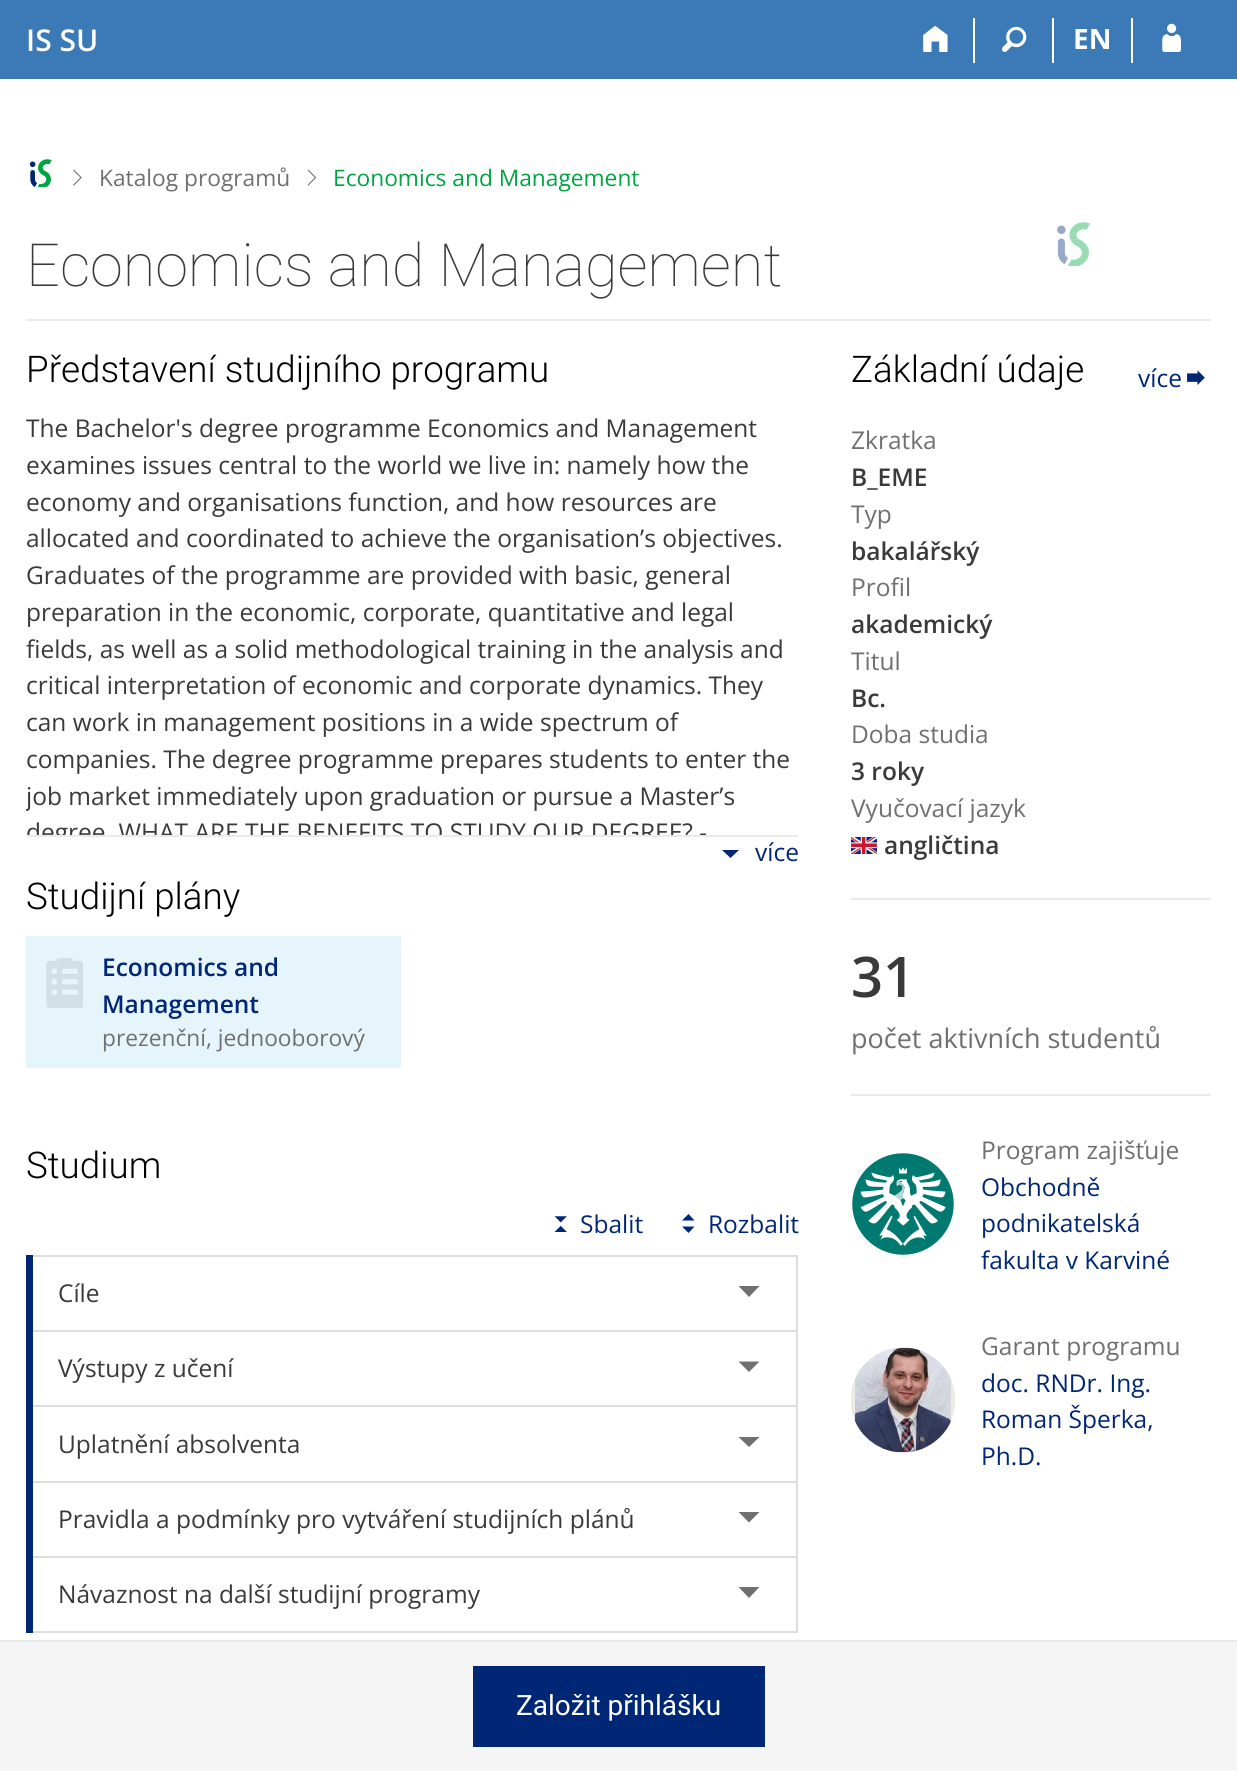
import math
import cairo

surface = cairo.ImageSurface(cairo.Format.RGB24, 1237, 1771)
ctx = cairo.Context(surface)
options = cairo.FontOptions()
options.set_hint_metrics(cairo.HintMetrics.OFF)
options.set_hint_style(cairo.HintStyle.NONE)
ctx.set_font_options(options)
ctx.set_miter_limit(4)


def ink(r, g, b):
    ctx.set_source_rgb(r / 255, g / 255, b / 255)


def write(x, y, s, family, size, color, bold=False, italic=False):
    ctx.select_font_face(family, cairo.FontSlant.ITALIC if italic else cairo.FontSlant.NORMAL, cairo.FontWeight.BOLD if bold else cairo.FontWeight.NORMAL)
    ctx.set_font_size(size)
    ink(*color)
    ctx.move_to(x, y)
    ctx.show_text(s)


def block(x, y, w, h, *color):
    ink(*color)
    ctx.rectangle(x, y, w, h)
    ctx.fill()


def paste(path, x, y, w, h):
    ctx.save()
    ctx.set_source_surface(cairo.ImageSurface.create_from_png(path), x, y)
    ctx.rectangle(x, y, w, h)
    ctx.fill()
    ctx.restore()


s1 = dict(family="Open Sans SemiBold", size=30, color=(255, 255, 255))
s2 = dict(family="Open Sans", size=28, color=(255, 255, 255), bold=True)
s3 = dict(family="Open Sans", size=22.75, color=(112, 112, 112))
s4 = dict(family="Open Sans", size=22.75, color=(0, 164, 66))
s5 = dict(family="Roboto Thin", size=59.5, color=(58, 58, 58))
s6 = dict(family="Roboto Light", size=36.75, color=(0, 0, 0))
s7 = dict(family="Open Sans", size=24.5, color=(58, 58, 58))
s8 = dict(family="Open Sans", size=24.5, color=(0, 39, 118))
s9 = dict(family="Open Sans SemiBold", size=24.5, color=(0, 39, 118))
s10 = dict(family="Open Sans", size=24.5, color=(112, 112, 112))
s11 = dict(family="Open Sans SemiBold", size=24.5, color=(58, 58, 58))
s12 = dict(family="Open Sans SemiBold", size=56, color=(58, 58, 58))
s13 = dict(family="Open Sans", size=27, color=(112, 112, 112))
s14 = dict(family="Roboto", size=28, color=(255, 255, 255))

ink(255, 255, 255)
ctx.paint()
block(0, 0, 1237, 79, 60, 122, 183)
write(26, 51, "IS SU", **s1)
block(973, 18, 2, 45, 255, 255, 255)
paste("pic1.png", 923, 26, 25, 26)
block(1052, 18, 2, 45, 255, 255, 255)
paste("pic2.png", 1002, 26, 25, 26)
block(1131, 18, 2, 45, 255, 255, 255)
write(1073, 49, "EN", **s2)
paste("pic3.png", 1162, 23, 19, 29)
paste("pic4.png", 30, 159, 22, 28)
paste("pic5.png", 73, 169, 9, 17)
write(99, 186, "Katalog programů", **s3)
paste("pic6.png", 307, 169, 10, 17)
write(333, 186, "Economics and Management", **s4)
write(26, 286, "Economics and Management", **s5)
paste("pic7.png", 1057, 222, 33, 44)
block(26, 319, 1185, 2, 234, 234, 234)
write(26, 382, "Představení studijního programu", **s6)
write(26, 437, "The Bachelor's degree programme Economics and Management", **s7)
write(26, 474, "examines issues central to the world we live in: namely how the", **s7)
write(26, 511, "economy and organisations function, and how resources are", **s7)
write(26, 547, "allocated and coordinated to achieve the organisation’s objectives.", **s7)
write(26, 584, "Graduates of the programme are provided with basic, general", **s7)
write(26, 621, "preparation in the economic, corporate, quantitative and legal", **s7)
write(26, 658, "fields, as well as a solid methodological training in the analysis and", **s7)
write(26, 694, "critical interpretation of economic and corporate dynamics. They", **s7)
write(26, 731, "can work in management positions in a wide spectrum of", **s7)
write(26, 768, "companies. The degree programme prepares students to enter the", **s7)
ctx.save()
ctx.rectangle(26, 345, 772, 490)
ctx.clip()
write(26, 805, "job market immediately upon graduation or pursue a Master’s", **s7)
write(26, 841, "degree. WHAT ARE THE BENEFITS TO STUDY OUR DEGREE? -", **s7)
ctx.restore()
block(26, 835, 772, 2, 234, 234, 234)
ink(0, 39, 118)
ctx.new_path()
ctx.move_to(739, 850)
ctx.line_to(730.5, 858)
ctx.line_to(722, 850)
ctx.close_path()
ctx.fill()
write(755, 861, "více", **s8)
write(26, 909, "Studijní plány", **s6)
block(26, 936, 375, 132, 230, 245, 251)
paste("pic8.png", 46, 958, 37, 50)
write(102, 976, "Economics and", **s9)
write(102, 1013, "Management", **s9)
write(102, 1046, "prezenční, jednooborový", **s3)
write(26, 1178, "Studium", **s6)
paste("pic9.png", 554, 1216, 13, 16)
write(580, 1233, "Sbalit", **s8)
ctx.new_path()
ctx.move_to(694.5, 1226.5)
ctx.line_to(688.5, 1233)
ctx.line_to(682, 1226.5)
ctx.close_path()
ctx.move_to(682, 1220.5)
ctx.line_to(688.5, 1214)
ctx.line_to(694.5, 1220.5)
ctx.close_path()
ctx.fill()
write(708, 1233, "Rozbalit", **s8)
block(26, 1255, 7, 150, 0, 39, 118)
block(33, 1255, 765, 2, 221, 221, 221)
block(796, 1255, 2, 75, 221, 221, 221)
write(58, 1302, "Cíle", **s7)
ink(112, 112, 112)
ctx.new_path()
ctx.move_to(738.5, 1286)
ctx.line_to(759.5, 1286)
ctx.line_to(749, 1297)
ctx.close_path()
ctx.fill()
block(33, 1330, 765, 2, 221, 221, 221)
block(796, 1330, 2, 75, 221, 221, 221)
write(58, 1377, "Výstupy z učení", **s7)
ink(112, 112, 112)
ctx.new_path()
ctx.move_to(738.5, 1361.5)
ctx.line_to(759.5, 1361.5)
ctx.line_to(749, 1372)
ctx.close_path()
ctx.fill()
ink(0, 39, 118)
ctx.new_path()
ctx.move_to(26, 1405)
ctx.line_to(26, 1481)
ctx.line_to(791, 1481)
ctx.line_to(791, 1480)
ctx.line_to(33, 1480)
ctx.line_to(33, 1405)
ctx.line_to(791, 1405)
ctx.close_path()
ctx.fill()
block(33, 1480, 758, 1, 255, 255, 255)
block(33, 1405, 765, 2, 221, 221, 221)
block(796, 1405, 2, 76, 221, 221, 221)
write(58, 1453, "Uplatnění absolventa", **s7)
ink(112, 112, 112)
ctx.new_path()
ctx.move_to(738.5, 1437)
ctx.line_to(759.5, 1437)
ctx.line_to(749, 1447)
ctx.close_path()
ctx.fill()
ink(0, 39, 118)
ctx.new_path()
ctx.move_to(26, 1481)
ctx.line_to(26, 1556)
ctx.line_to(791, 1556)
ctx.line_to(33, 1556)
ctx.line_to(33, 1481)
ctx.close_path()
ctx.fill()
block(33, 1481, 765, 2, 221, 221, 221)
block(796, 1481, 2, 75, 221, 221, 221)
write(58, 1528, "Pravidla a podmínky pro vytváření studijních plánů", **s7)
ink(112, 112, 112)
ctx.new_path()
ctx.move_to(738.5, 1512)
ctx.line_to(759.5, 1512)
ctx.line_to(749, 1522.5)
ctx.close_path()
ctx.fill()
ink(0, 39, 118)
ctx.new_path()
ctx.move_to(26, 1556)
ctx.line_to(26, 1633)
ctx.line_to(791, 1633)
ctx.line_to(33, 1633)
ctx.line_to(33, 1556)
ctx.close_path()
ctx.fill()
block(33, 1556, 765, 2, 221, 221, 221)
block(796, 1556, 2, 77, 221, 221, 221)
block(33, 1631, 765, 2, 221, 221, 221)
write(58, 1603, "Návaznost na další studijní programy", **s7)
ink(112, 112, 112)
ctx.new_path()
ctx.move_to(738.5, 1587)
ctx.line_to(759.5, 1587)
ctx.line_to(749, 1598)
ctx.close_path()
ctx.fill()
write(851, 382, "Základní údaje", **s6)
write(1138, 387, "více", **s8)
paste("pic10.png", 1187, 370, 18, 15)
write(851, 449, "Zkratka", **s10)
write(851, 486, "B_EME", **s11)
write(851, 523, "Typ", **s10)
write(851, 560, "bakalářský", **s11)
write(851, 596, "Profil", **s10)
write(851, 633, "akademický", **s11)
write(851, 670, "Titul", **s10)
write(851, 707, "Bc.", **s11)
write(851, 743, "Doba studia", **s10)
write(851, 780, "3 roky", **s11)
write(851, 817, "Vyučovací jazyk", **s10)
paste("pic11.png", 851, 837, 26, 17)
write(884, 854, "angličtina", **s11)
block(851, 898, 360, 2, 234, 234, 234)
write(851, 997, "31", **s12)
write(851, 1048, "počet aktivních studentů", **s13)
block(851, 1094, 360, 2, 234, 234, 234)
paste("pic12.png", 852, 1153, 102, 102)
write(981, 1159, "Program zajišťuje", **s10)
write(981, 1196, "Obchodně", **s8)
write(981, 1232, "podnikatelská", **s8)
write(981, 1269, "fakulta v Karviné", **s8)
paste("pic13.png", 851, 1347, 104, 106)
write(981, 1355, "Garant programu", **s10)
write(981, 1392, "doc. RNDr. Ing.", **s8)
write(981, 1428, "Roman Šperka,", **s8)
write(981, 1465, "Ph.D.", **s8)
block(0, 1642, 1237, 129, 245, 245, 245)
block(0, 1640, 1237, 2, 234, 234, 234)
block(473, 1666, 292, 81, 0, 39, 118)
write(516, 1715, "Založit přihlášku", **s14)
surface.write_to_png("screenshot.png")
